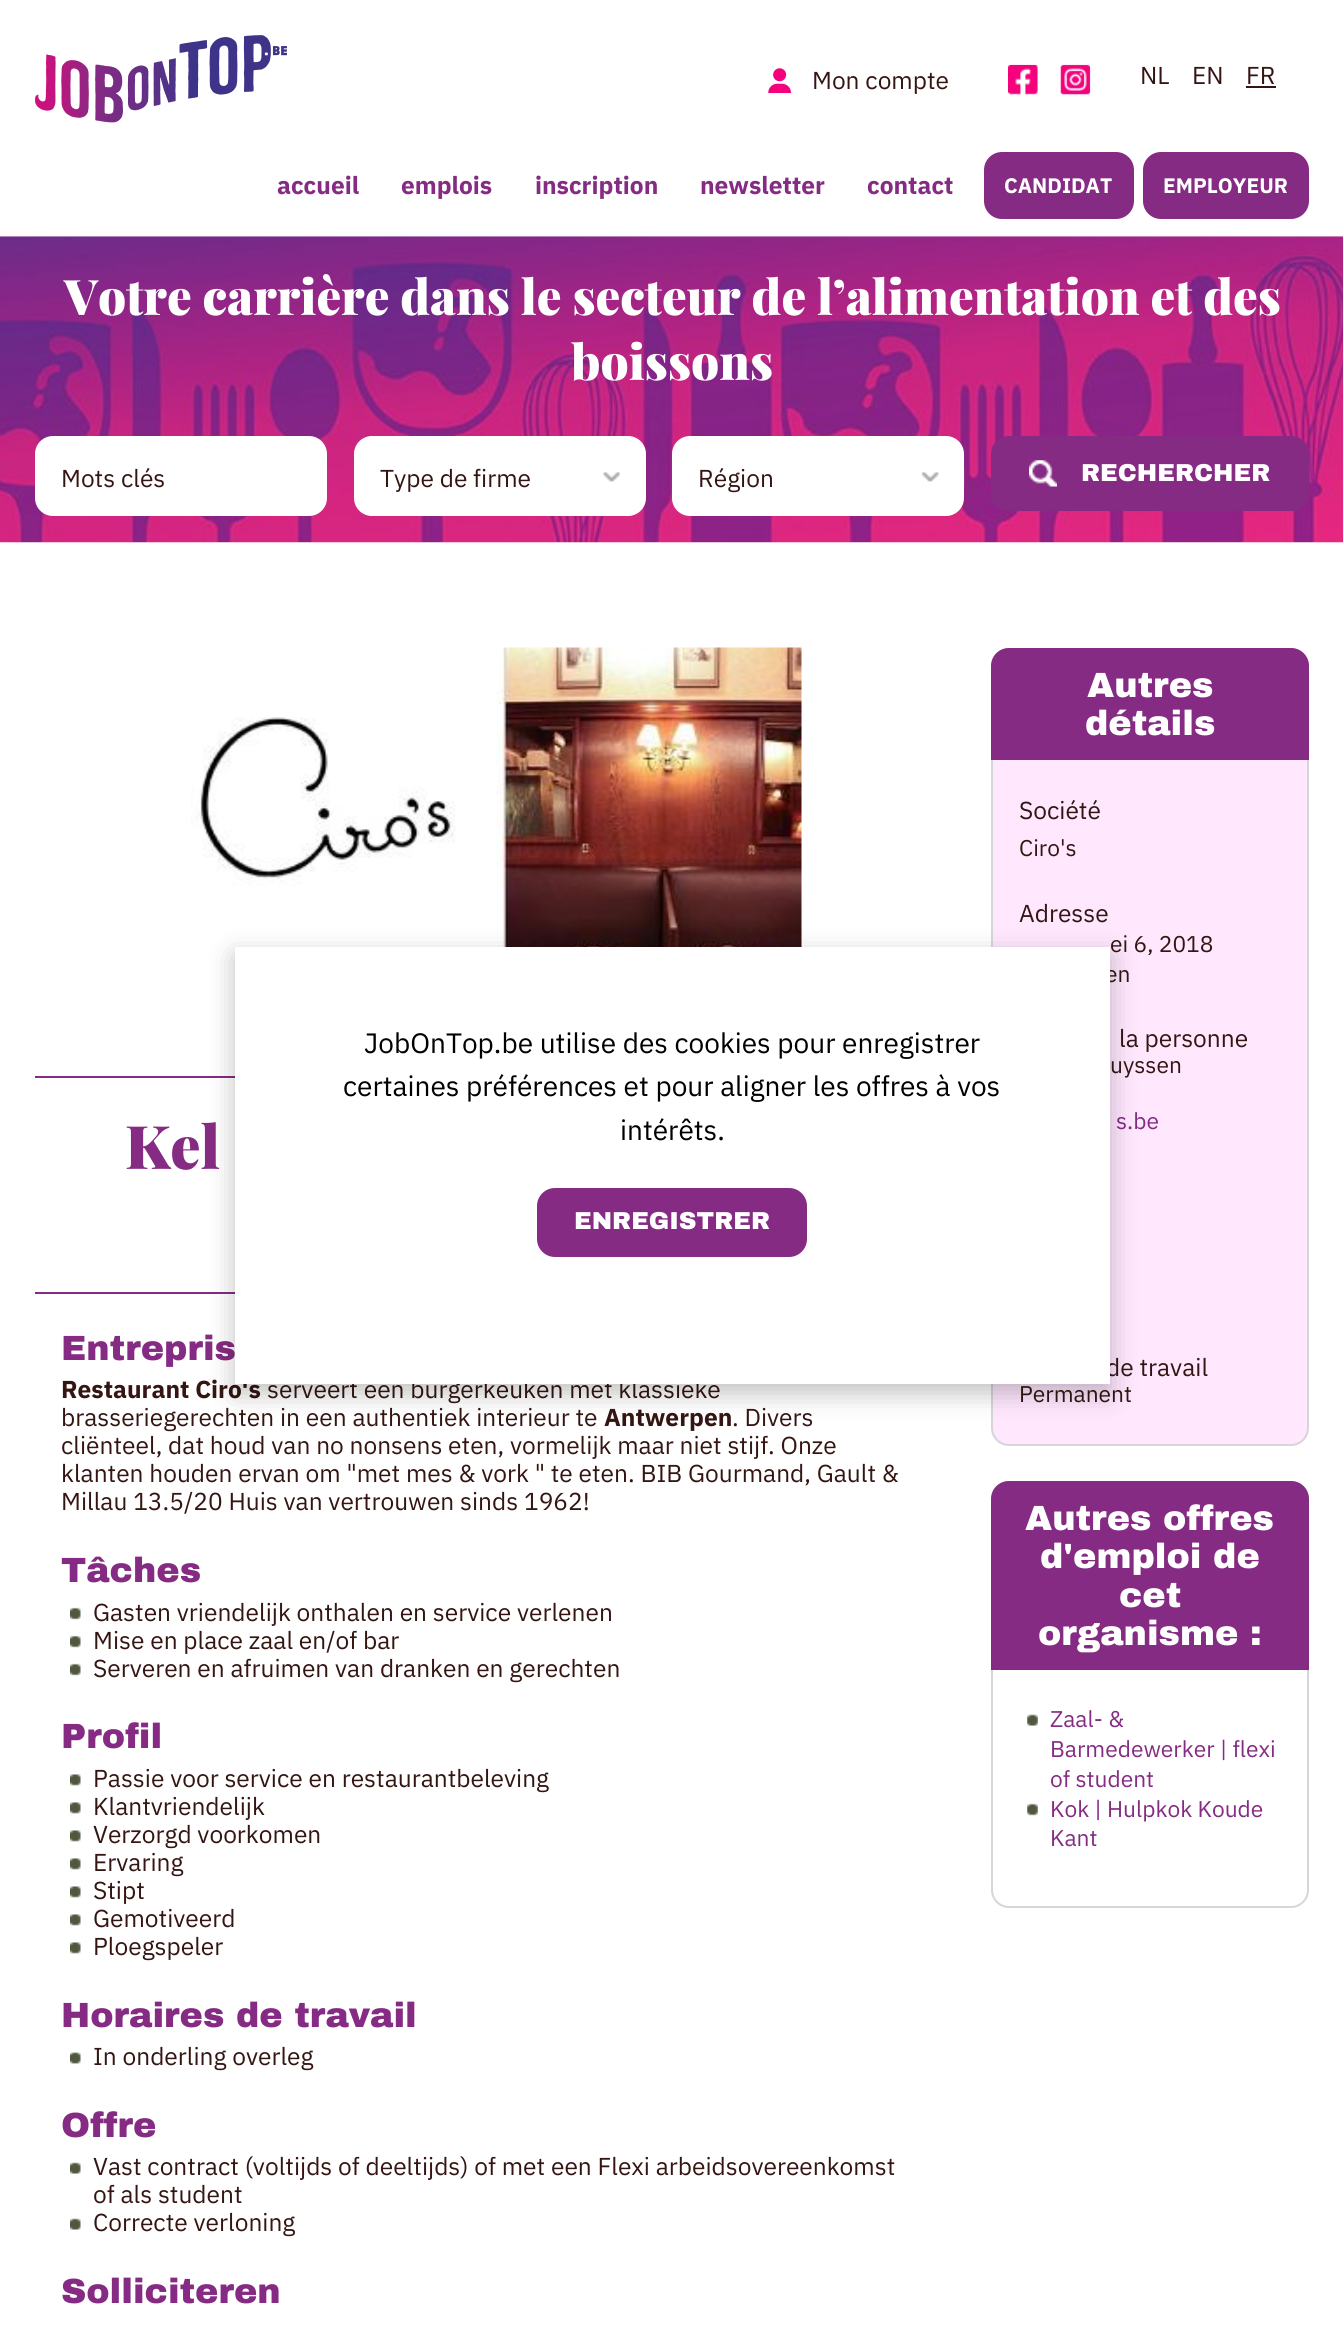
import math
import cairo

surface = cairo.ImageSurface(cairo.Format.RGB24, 1343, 2328)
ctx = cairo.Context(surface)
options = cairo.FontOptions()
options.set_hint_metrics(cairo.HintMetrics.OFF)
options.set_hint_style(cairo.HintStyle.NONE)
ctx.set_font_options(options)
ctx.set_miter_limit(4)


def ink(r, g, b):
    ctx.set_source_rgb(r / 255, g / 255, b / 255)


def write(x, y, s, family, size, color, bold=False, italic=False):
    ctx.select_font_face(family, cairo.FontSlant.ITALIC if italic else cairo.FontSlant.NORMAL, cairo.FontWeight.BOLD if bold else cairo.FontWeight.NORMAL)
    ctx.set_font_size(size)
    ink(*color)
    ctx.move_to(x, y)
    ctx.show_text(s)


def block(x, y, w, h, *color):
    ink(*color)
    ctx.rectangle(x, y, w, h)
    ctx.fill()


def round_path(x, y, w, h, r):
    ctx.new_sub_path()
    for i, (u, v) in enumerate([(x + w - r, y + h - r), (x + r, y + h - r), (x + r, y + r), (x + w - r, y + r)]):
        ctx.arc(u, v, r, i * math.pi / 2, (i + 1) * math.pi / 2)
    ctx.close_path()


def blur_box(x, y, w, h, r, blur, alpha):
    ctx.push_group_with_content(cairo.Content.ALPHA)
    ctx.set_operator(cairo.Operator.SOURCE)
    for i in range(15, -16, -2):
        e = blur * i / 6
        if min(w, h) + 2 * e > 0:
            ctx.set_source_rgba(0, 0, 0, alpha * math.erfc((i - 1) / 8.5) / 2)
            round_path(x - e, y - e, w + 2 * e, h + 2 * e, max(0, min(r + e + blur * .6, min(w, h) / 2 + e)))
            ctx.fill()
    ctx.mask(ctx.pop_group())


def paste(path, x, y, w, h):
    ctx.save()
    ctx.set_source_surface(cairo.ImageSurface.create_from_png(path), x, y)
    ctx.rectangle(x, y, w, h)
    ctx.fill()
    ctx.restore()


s1 = dict(family="IBM Plex Sans", size=24.5, color=(52, 21, 18))
s2 = dict(family="IBM Plex Sans", size=24.5, color=(133, 43, 131), bold=True)
s3 = dict(family="IBM Plex Sans", size=21, color=(255, 255, 255), bold=True)
s4 = dict(family="Playfair Display Black", size=49, color=(255, 255, 255))
s5 = dict(family="Archivo Black Black", size=24.5, color=(255, 255, 255))
s6 = dict(family="Playfair Display Black", size=60, color=(133, 43, 131))
s7 = dict(family="Archivo Black Black", size=35, color=(133, 43, 131))
s8 = dict(family="IBM Plex Sans", size=24.5, color=(52, 21, 18), bold=True)
s9 = dict(family="Archivo Black Black", size=35, color=(255, 255, 255))
s10 = dict(family="IBM Plex Sans", size=22.75, color=(52, 21, 18))
s11 = dict(family="IBM Plex Sans", size=22.75, color=(133, 43, 131))
s12 = dict(family="IBM Plex Sans", size=28, color=(0, 0, 0))

ink(255, 255, 255)
ctx.paint()
paste("pic1.png", 35, 35, 252, 88)
paste("pic2.png", 768, 68, 23, 25)
write(812, 89, "Mon compte", **s1)
paste("pic3.png", 1008, 64, 30, 31)
paste("pic4.png", 1060, 64, 31, 31)
write(1140, 84, "NL", **s1)
write(1192, 84, "EN", **s1)
write(1246, 84, "FR", **s1)
block(1246, 86, 30, 2, 52, 21, 18)
write(277, 194, "accueil", **s2)
write(401, 194, "emplois", **s2)
write(535, 194, "inscription", **s2)
write(700, 194, "newsletter", **s2)
write(867, 194, "contact", **s2)
round_path(984, 152, 150, 67, 18)
ctx.fill()
write(1004, 193, "CANDIDAT", **s3)
ink(133, 43, 131)
round_path(1143, 152, 166, 67, 18)
ctx.fill()
write(1163, 193, "EMPLOYEUR", **s3)
paste("pic5.png", 0, 236, 1343, 307)
write(64, 315, "Votre carrière dans le secteur de l’alimentation et des", **s4)
write(571, 380, "boissons", **s4)
round_path(35, 436, 292, 80, 18)
ctx.fill()
write(61, 487, "Mots clés", **s1)
ink(255, 255, 255)
round_path(354, 436, 292, 80, 18)
ctx.fill()
paste("pic6.png", 603, 472, 17, 10)
write(380, 487, "Type de firme", **s1)
ink(255, 255, 255)
round_path(672, 436, 292, 80, 18)
ctx.fill()
paste("pic7.png", 921, 467, 44, 20)
write(698, 487, "Région", **s1)
ink(133, 43, 131)
round_path(992, 437, 316, 73, 17)
ctx.fill_preserve()
ctx.stroke()
paste("pic8.png", 1029, 460, 28, 27)
write(1081, 481, "RECHERCHER", **s5)
paste("pic9.png", 191, 647, 611, 360)
block(35, 1076, 200, 2, 133, 43, 131)
block(35, 1292, 200, 2, 133, 43, 131)
write(125, 1169, "Kel", **s6)
write(61, 1360, "Entrepris", **s7)
write(61, 1398, "Restaurant Ciro's", **s8)
write(267, 1398, "serveert een burgerkeuken met klassieke", **s1)
write(61, 1426, "brasseriegerechten in een authentiek interieur te", **s1)
write(604, 1426, "Antwerpen", **s8)
write(732, 1426, ". Divers", **s1)
write(61, 1454, "cliënteel, dat houd van no nonsens eten, vormelijk maar niet stijf. Onze", **s1)
write(61, 1482, "klanten houden ervan om \"met mes & vork \" te eten. BIB Gourmand, Gault &", **s1)
write(61, 1510, "Millau 13.5/20 Huis van vertrouwen sinds 1962!", **s1)
write(61, 1582, "Tâches", **s7)
paste("pic10.png", 70, 1607, 11, 13)
write(93, 1621, "Gasten vriendelijk onthalen en service verlenen", **s1)
paste("pic10.png", 70, 1635, 11, 13)
write(93, 1649, "Mise en place zaal en/of bar", **s1)
paste("pic10.png", 70, 1663, 11, 13)
write(93, 1677, "Serveren en afruimen van dranken en gerechten", **s1)
write(61, 1748, "Profil", **s7)
paste("pic11.png", 70, 1774, 11, 12)
write(93, 1787, "Passie voor service en restaurantbeleving", **s1)
paste("pic12.png", 70, 1802, 11, 12)
write(93, 1815, "Klantvriendelijk", **s1)
paste("pic12.png", 70, 1830, 11, 12)
write(93, 1843, "Verzorgd voorkomen", **s1)
paste("pic11.png", 70, 1858, 11, 12)
write(93, 1871, "Ervaring", **s1)
paste("pic12.png", 70, 1886, 11, 12)
write(93, 1899, "Stipt", **s1)
paste("pic11.png", 70, 1914, 11, 12)
write(93, 1927, "Gemotiveerd", **s1)
paste("pic11.png", 70, 1942, 11, 12)
write(93, 1955, "Ploegspeler", **s1)
write(61, 2027, "Horaires de travail", **s7)
paste("pic13.png", 70, 2052, 11, 12)
write(93, 2065, "In onderling overleg", **s1)
write(61, 2137, "Offre", **s7)
paste("pic14.png", 70, 2162, 11, 12)
write(93, 2175, "Vast contract (voltijds of deeltijds) of met een Flexi arbeidsovereenkomst", **s1)
write(93, 2203, "of als student", **s1)
paste("pic14.png", 70, 2218, 11, 12)
write(93, 2231, "Correcte verloning", **s1)
write(61, 2303, "Solliciteren", **s7)
ink(255, 231, 254)
round_path(992, 649, 316, 796, 17)
ctx.fill_preserve()
ink(214, 214, 214)
ctx.stroke()
ink(133, 43, 131)
ctx.new_path()
ctx.move_to(1009, 648)
ctx.line_to(1291, 648)
ctx.curve_to(1301, 648, 1309, 656, 1309, 666)
ctx.line_to(1309, 760)
ctx.line_to(991, 760)
ctx.line_to(991, 666)
ctx.curve_to(991, 656, 999, 648, 1009, 648)
ctx.close_path()
ctx.fill()
write(1087, 697, "Autres", **s9)
write(1085, 735, "détails", **s9)
write(1019, 819, "Société", **s1)
write(1019, 856, "Ciro's", **s10)
write(1019, 922, "Adresse", **s1)
write(1110, 952, "ei 6, 2018", **s10)
write(1105, 982, "en", **s10)
write(1119, 1047, "la personne", **s1)
write(1110, 1073, "uyssen", **s10)
write(1116, 1129, "s.be", **s11)
write(1106, 1376, "de travail", **s1)
write(1019, 1402, "Permanent", **s10)
round_path(992, 1482, 316, 425, 17)
ink(214, 214, 214)
ctx.stroke()
ink(133, 43, 131)
ctx.new_path()
ctx.move_to(1009, 1481)
ctx.line_to(1291, 1481)
ctx.curve_to(1301, 1481, 1309, 1489, 1309, 1499)
ctx.line_to(1309, 1670)
ctx.line_to(991, 1670)
ctx.line_to(991, 1499)
ctx.curve_to(991, 1489, 999, 1481, 1009, 1481)
ctx.close_path()
ctx.fill()
write(1025, 1530, "Autres offres", **s9)
write(1040, 1568, "d'emploi de", **s9)
write(1119, 1607, "cet", **s9)
write(1038, 1645, "organisme :", **s9)
paste("pic15.png", 1027, 1714, 11, 12)
write(1050, 1727, "Zaal- &", **s11)
write(1050, 1757, "Barmedewerker | flexi", **s11)
write(1050, 1787, "of student", **s11)
paste("pic16.png", 1027, 1803, 11, 13)
write(1050, 1817, "Kok | Hulpkok Koude", **s11)
write(1050, 1846, "Kant", **s11)
ink(0, 0, 0)
blur_box(235, 956, 875, 437, 0, 13, 0.25)
block(235, 947, 875, 437, 255, 255, 255)
write(364, 1053, "JobOnTop.be utilise des cookies pour enregistrer", **s12)
write(343, 1096, "certaines préférences et pour aligner les offres à vos", **s12)
write(620, 1140, "intérêts.", **s12)
ink(133, 43, 131)
round_path(538, 1189, 268, 67, 17)
ctx.fill_preserve()
ctx.stroke()
write(574, 1229, "ENREGISTRER", **s5)
surface.write_to_png("screenshot.png")
